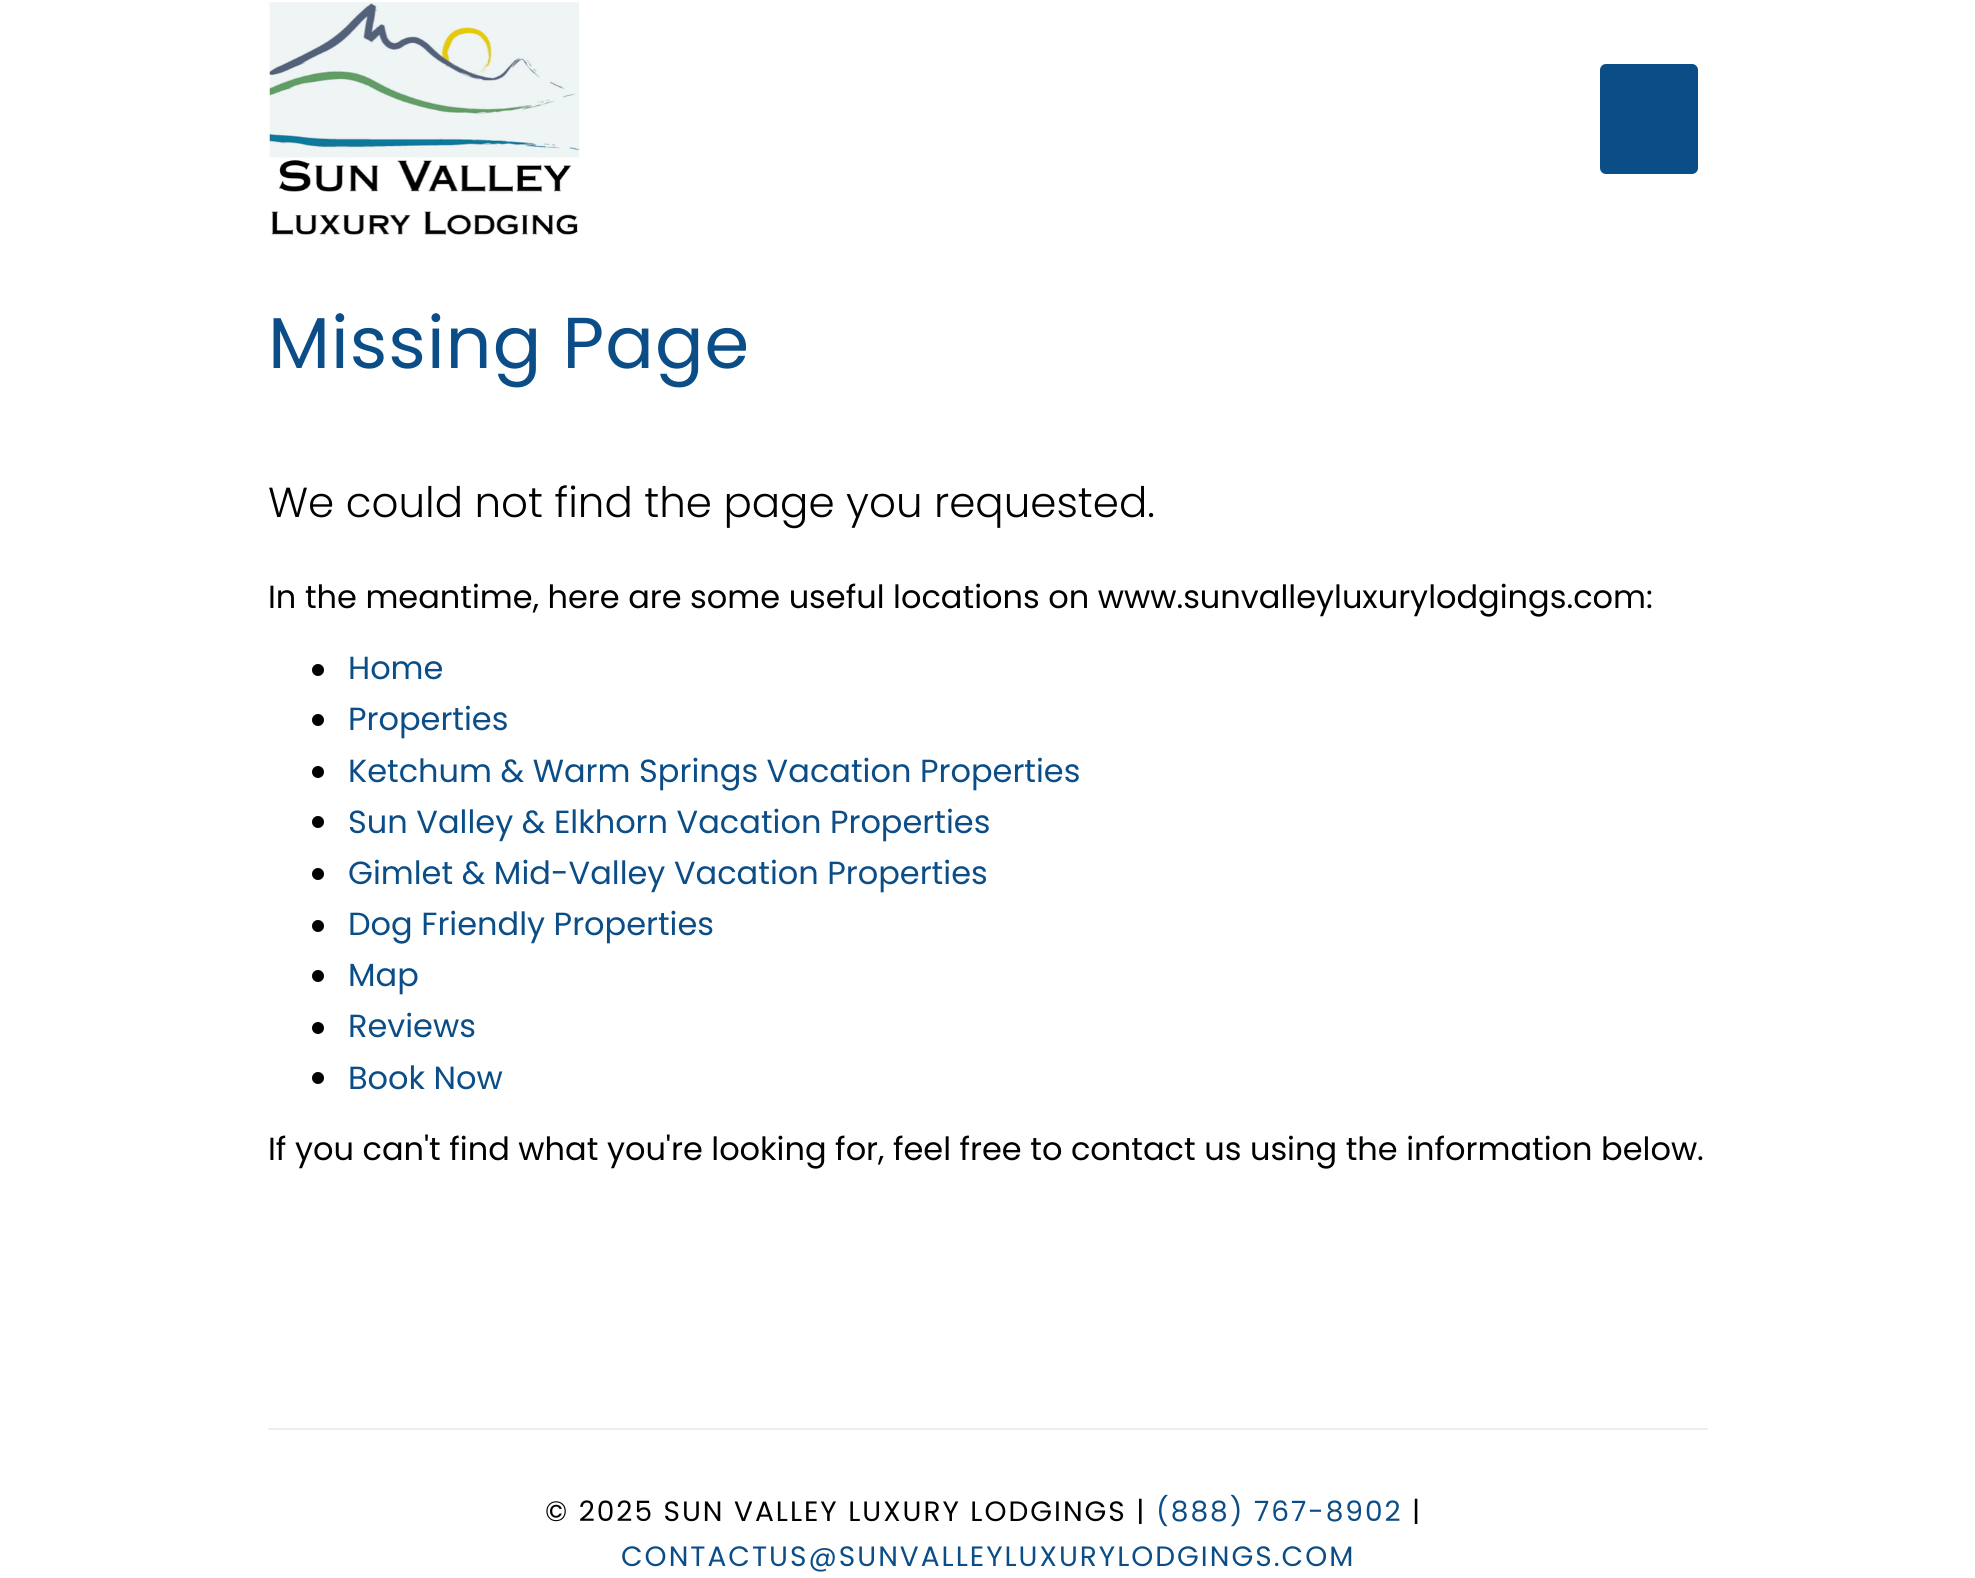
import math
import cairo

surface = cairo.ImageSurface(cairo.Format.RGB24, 1975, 1578)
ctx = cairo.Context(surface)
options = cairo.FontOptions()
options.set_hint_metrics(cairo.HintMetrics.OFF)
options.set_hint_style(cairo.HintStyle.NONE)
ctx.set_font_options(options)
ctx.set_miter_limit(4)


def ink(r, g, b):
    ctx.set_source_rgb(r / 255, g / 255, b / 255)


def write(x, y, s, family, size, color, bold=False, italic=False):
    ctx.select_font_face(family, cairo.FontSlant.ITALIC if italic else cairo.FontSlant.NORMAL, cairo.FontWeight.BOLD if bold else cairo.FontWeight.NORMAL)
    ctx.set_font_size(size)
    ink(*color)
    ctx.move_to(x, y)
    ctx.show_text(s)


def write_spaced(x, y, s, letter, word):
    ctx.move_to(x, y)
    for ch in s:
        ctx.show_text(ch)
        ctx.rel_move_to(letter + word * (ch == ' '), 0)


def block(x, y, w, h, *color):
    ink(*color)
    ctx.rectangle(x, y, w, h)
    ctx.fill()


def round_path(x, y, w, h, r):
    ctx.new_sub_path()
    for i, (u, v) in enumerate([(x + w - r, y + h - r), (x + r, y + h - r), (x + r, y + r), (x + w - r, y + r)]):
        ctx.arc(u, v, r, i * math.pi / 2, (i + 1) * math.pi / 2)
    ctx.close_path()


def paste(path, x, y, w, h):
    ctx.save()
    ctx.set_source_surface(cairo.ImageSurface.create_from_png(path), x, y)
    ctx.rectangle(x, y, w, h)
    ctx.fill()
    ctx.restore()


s1 = dict(family="Poppins Light", size=42, color=(0, 0, 0))
s2 = dict(family="Poppins", size=32, color=(0, 0, 0))
s3 = dict(family="Poppins", size=32, color=(11, 77, 135))

ink(255, 255, 255)
ctx.paint()
paste("pic1.png", 268, 2, 312, 234)
ink(11, 77, 135)
round_path(1601, 65, 96, 108, 5)
ctx.fill_preserve()
ctx.stroke()
ctx.select_font_face("Poppins")
ctx.set_font_size(72)
write_spaced(268, 368, "Missing Page", 1, 0)
write(268, 517, "We could not find the page you requested.", **s1)
write(268, 608, "In the meantime, here are some useful locations on www.sunvalleyluxurylodgings.com:", **s2)
ctx.new_path()
ctx.arc(318, 670, 6, 0, 2 * math.pi)
ctx.fill()
write(348, 679, "Home", **s3)
ink(0, 0, 0)
ctx.new_path()
ctx.arc(318, 720, 6, 0, 2 * math.pi)
ctx.fill()
write(348, 730, "Properties", **s3)
ink(0, 0, 0)
ctx.new_path()
ctx.arc(318, 772, 6, 0, 2 * math.pi)
ctx.fill()
write(348, 782, "Ketchum & Warm Springs Vacation Properties", **s3)
ink(0, 0, 0)
ctx.new_path()
ctx.arc(318, 822, 6, 0, 2 * math.pi)
ctx.fill()
write(348, 833, "Sun Valley & Elkhorn Vacation Properties", **s3)
ink(0, 0, 0)
ctx.new_path()
ctx.arc(318, 874, 6, 0, 2 * math.pi)
ctx.fill()
write(348, 884, "Gimlet & Mid-Valley Vacation Properties", **s3)
ink(0, 0, 0)
ctx.new_path()
ctx.arc(318, 926, 6, 0, 2 * math.pi)
ctx.fill()
write(348, 935, "Dog Friendly Properties", **s3)
ink(0, 0, 0)
ctx.new_path()
ctx.arc(318, 976, 6, 0, 2 * math.pi)
ctx.fill()
write(348, 986, "Map", **s3)
ink(0, 0, 0)
ctx.new_path()
ctx.arc(318, 1028, 6, 0, 2 * math.pi)
ctx.fill()
write(348, 1037, "Reviews", **s3)
ink(0, 0, 0)
ctx.new_path()
ctx.arc(318, 1078, 6, 0, 2 * math.pi)
ctx.fill()
write(348, 1089, "Book Now", **s3)
write(268, 1160, "If you can't find what you're looking for, feel free to contact us using the information below.", **s2)
block(268, 1428, 1440, 2, 238, 238, 238)
ctx.set_font_size(28)
ink(0, 0, 0)
write_spaced(545, 1521, "© 2025 SUN VALLEY LUXURY LODGINGS |", 2, 0)
ink(11, 77, 135)
write_spaced(1156, 1521, "(888) 767-8902", 2, 0)
ink(0, 0, 0)
write_spaced(1412, 1521, "|", 2, 0)
ink(11, 77, 135)
write_spaced(621, 1566, "CONTACTUS@SUNVALLEYLUXURYLODGINGS.COM", 2, 0)
surface.write_to_png("screenshot.png")
